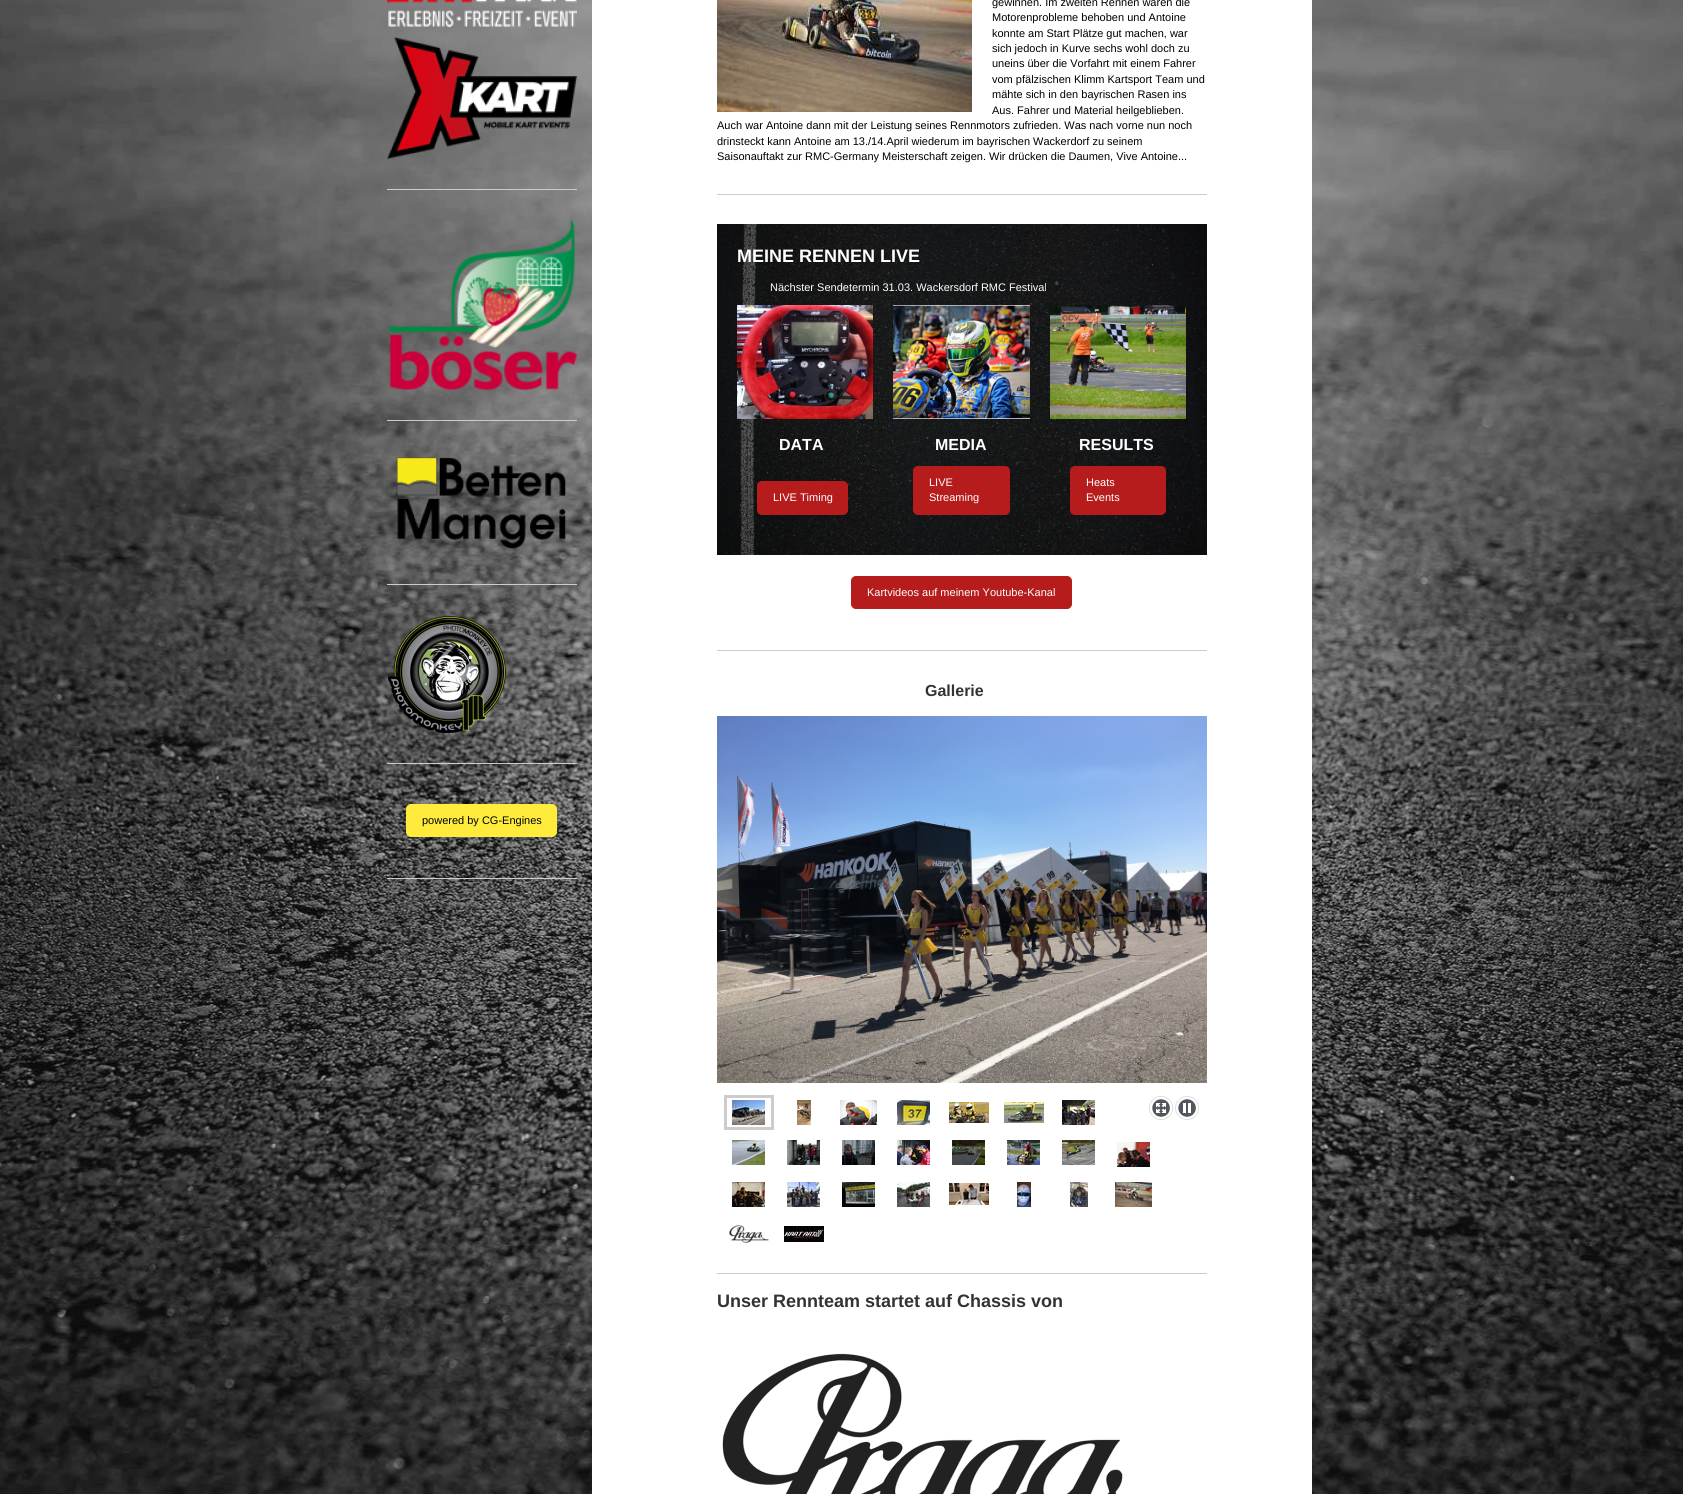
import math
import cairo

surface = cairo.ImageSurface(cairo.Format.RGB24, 1683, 1494)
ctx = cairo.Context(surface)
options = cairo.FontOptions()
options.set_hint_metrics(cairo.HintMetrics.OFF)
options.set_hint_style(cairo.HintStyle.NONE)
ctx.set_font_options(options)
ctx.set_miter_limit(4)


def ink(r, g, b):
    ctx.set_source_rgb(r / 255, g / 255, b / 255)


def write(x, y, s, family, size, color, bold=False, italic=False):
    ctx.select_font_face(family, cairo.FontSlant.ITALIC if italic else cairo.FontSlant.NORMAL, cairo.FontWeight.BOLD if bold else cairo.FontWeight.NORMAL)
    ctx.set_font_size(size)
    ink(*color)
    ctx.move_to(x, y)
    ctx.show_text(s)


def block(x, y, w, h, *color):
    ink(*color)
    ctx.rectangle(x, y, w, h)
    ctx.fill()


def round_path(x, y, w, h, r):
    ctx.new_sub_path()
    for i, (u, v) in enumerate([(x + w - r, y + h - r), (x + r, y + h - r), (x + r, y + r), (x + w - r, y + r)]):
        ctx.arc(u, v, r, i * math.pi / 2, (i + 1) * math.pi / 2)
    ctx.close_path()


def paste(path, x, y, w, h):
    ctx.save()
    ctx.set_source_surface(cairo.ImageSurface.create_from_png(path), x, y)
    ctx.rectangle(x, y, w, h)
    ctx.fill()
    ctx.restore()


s1 = dict(family="Liberation Sans", size=11, color=(0, 0, 0))
s2 = dict(family="Liberation Sans", size=18, color=(255, 255, 255), bold=True)
s3 = dict(family="Liberation Sans", size=11, color=(255, 255, 255))
s4 = dict(family="Liberation Sans", size=16, color=(255, 255, 255), bold=True)
s5 = dict(family="Liberation Sans", size=16, color=(51, 51, 51), bold=True)
s6 = dict(family="Liberation Sans", size=18, color=(51, 51, 51), bold=True)

ink(255, 255, 255)
ctx.paint()
paste("pic1.png", 0, 0, 1683, 1494)
block(592, 0, 720, 1494, 255, 255, 255)
paste("pic2.png", 387, 0, 190, 27)
paste("pic3.png", 387, 37, 190, 122)
block(387, 189, 190, 1, 204, 204, 204)
paste("pic4.png", 387, 219, 190, 171)
block(387, 420, 190, 1, 204, 204, 204)
paste("pic5.png", 396, 457, 170, 92)
block(387, 584, 190, 1, 204, 204, 204)
paste("pic6.png", 388, 615, 118, 118)
block(387, 763, 190, 1, 204, 204, 204)
ink(255, 235, 60)
round_path(406.5, 804.5, 150, 32, 4.5)
ctx.fill_preserve()
ctx.set_line_width(1)
ctx.stroke()
write(422, 824, "powered by CG-Engines", **s1)
block(387, 878, 190, 1, 204, 204, 204)
paste("pic7.png", 717, 0, 255, 112)
write(992, 6, "gewinnen. Im zweiten Rennen waren die", **s1)
write(992, 21, "Motorenprobleme behoben und Antoine", **s1)
write(992, 37, "konnte am Start Plätze gut machen, war", **s1)
write(992, 52, "sich jedoch in Kurve sechs wohl doch zu", **s1)
write(992, 67, "uneins über die Vorfahrt mit einem Fahrer", **s1)
write(992, 83, "vom pfälzischen Klimm Kartsport Team und", **s1)
write(992, 98, "mähte sich in den bayrischen Rasen ins", **s1)
write(992, 114, "Aus. Fahrer und Material heilgeblieben.", **s1)
write(717, 129, "Auch war Antoine dann mit der Leistung seines Rennmotors zufrieden. Was nach vorne nun noch", **s1)
write(717, 145, "drinsteckt kann Antoine am 13./14.April wiederum im bayrischen Wackerdorf zu seinem", **s1)
write(717, 160, "Saisonauftakt zur RMC-Germany Meisterschaft zeigen. Wir drücken die Daumen, Vive Antoine...", **s1)
block(717, 194, 490, 1, 204, 204, 204)
paste("pic8.png", 717, 224, 490, 331)
write(737, 262, "MEINE RENNEN LIVE", **s2)
write(770, 291, "Nächster Sendetermin 31.03. Wackersdorf RMC Festival", **s3)
paste("pic9.png", 737, 305, 136, 114)
write(779, 450, "DATA", **s4)
ink(183, 28, 28)
round_path(757.5, 481.5, 90, 33, 4.5)
ctx.fill_preserve()
ctx.stroke()
write(773, 501, "LIVE Timing", **s3)
paste("pic10.png", 893, 305, 137, 114)
write(935, 450, "MEDIA", **s4)
ink(183, 28, 28)
round_path(913.5, 466.5, 96, 48, 4.5)
ctx.fill_preserve()
ctx.stroke()
write(929, 486, "LIVE", **s3)
write(929, 501, "Streaming", **s3)
paste("pic11.png", 1050, 305, 136, 114)
write(1079, 450, "RESULTS", **s4)
ink(183, 28, 28)
round_path(1070.5, 466.5, 95, 48, 4.5)
ctx.fill_preserve()
ctx.stroke()
write(1086, 486, "Heats", **s3)
write(1086, 501, "Events", **s3)
ink(183, 28, 28)
round_path(851.5, 576.5, 220, 32, 4.5)
ctx.fill_preserve()
ctx.stroke()
write(867, 596, "Kartvideos auf meinem Youtube-Kanal", **s3)
block(717, 650, 490, 1, 204, 204, 204)
write(925, 696, "Gallerie", **s5)
paste("pic12.png", 717, 716, 490, 367)
ctx.rectangle(725.5, 1096.5, 47, 32)
ink(204, 204, 204)
ctx.set_line_width(3)
ctx.stroke()
paste("pic13.png", 732, 1100, 33, 25)
paste("pic14.png", 797, 1100, 14, 25)
paste("pic15.png", 840, 1100, 37, 25)
paste("pic16.png", 897, 1100, 33, 25)
paste("pic17.png", 949, 1102, 40, 21)
paste("pic18.png", 1004, 1102, 40, 21)
paste("pic19.png", 1062, 1100, 33, 25)
paste("pic20.png", 1149, 1096, 25, 24)
paste("pic21.png", 1175, 1096, 25, 24)
paste("pic22.png", 732, 1140, 33, 25)
paste("pic23.png", 787, 1140, 33, 25)
paste("pic24.png", 842, 1140, 33, 25)
paste("pic25.png", 897, 1140, 33, 25)
paste("pic26.png", 952, 1140, 33, 25)
paste("pic27.png", 1007, 1140, 33, 25)
paste("pic28.png", 1062, 1140, 33, 25)
paste("pic29.png", 1117, 1142, 33, 25)
paste("pic30.png", 732, 1182, 33, 25)
paste("pic31.png", 787, 1182, 33, 25)
paste("pic32.png", 842, 1182, 33, 25)
paste("pic33.png", 897, 1182, 33, 25)
paste("pic34.png", 949, 1183, 40, 22)
paste("pic35.png", 1017, 1182, 14, 25)
paste("pic36.png", 1070, 1182, 18, 25)
paste("pic37.png", 1115, 1182, 37, 25)
paste("pic38.png", 729, 1225, 40, 18)
paste("pic39.png", 784, 1226, 40, 16)
block(717, 1273, 490, 1, 204, 204, 204)
write(717, 1307, "Unser Rennteam startet auf Chassis von", **s6)
paste("pic40.png", 722, 1353, 401, 141)
surface.write_to_png("screenshot.png")
